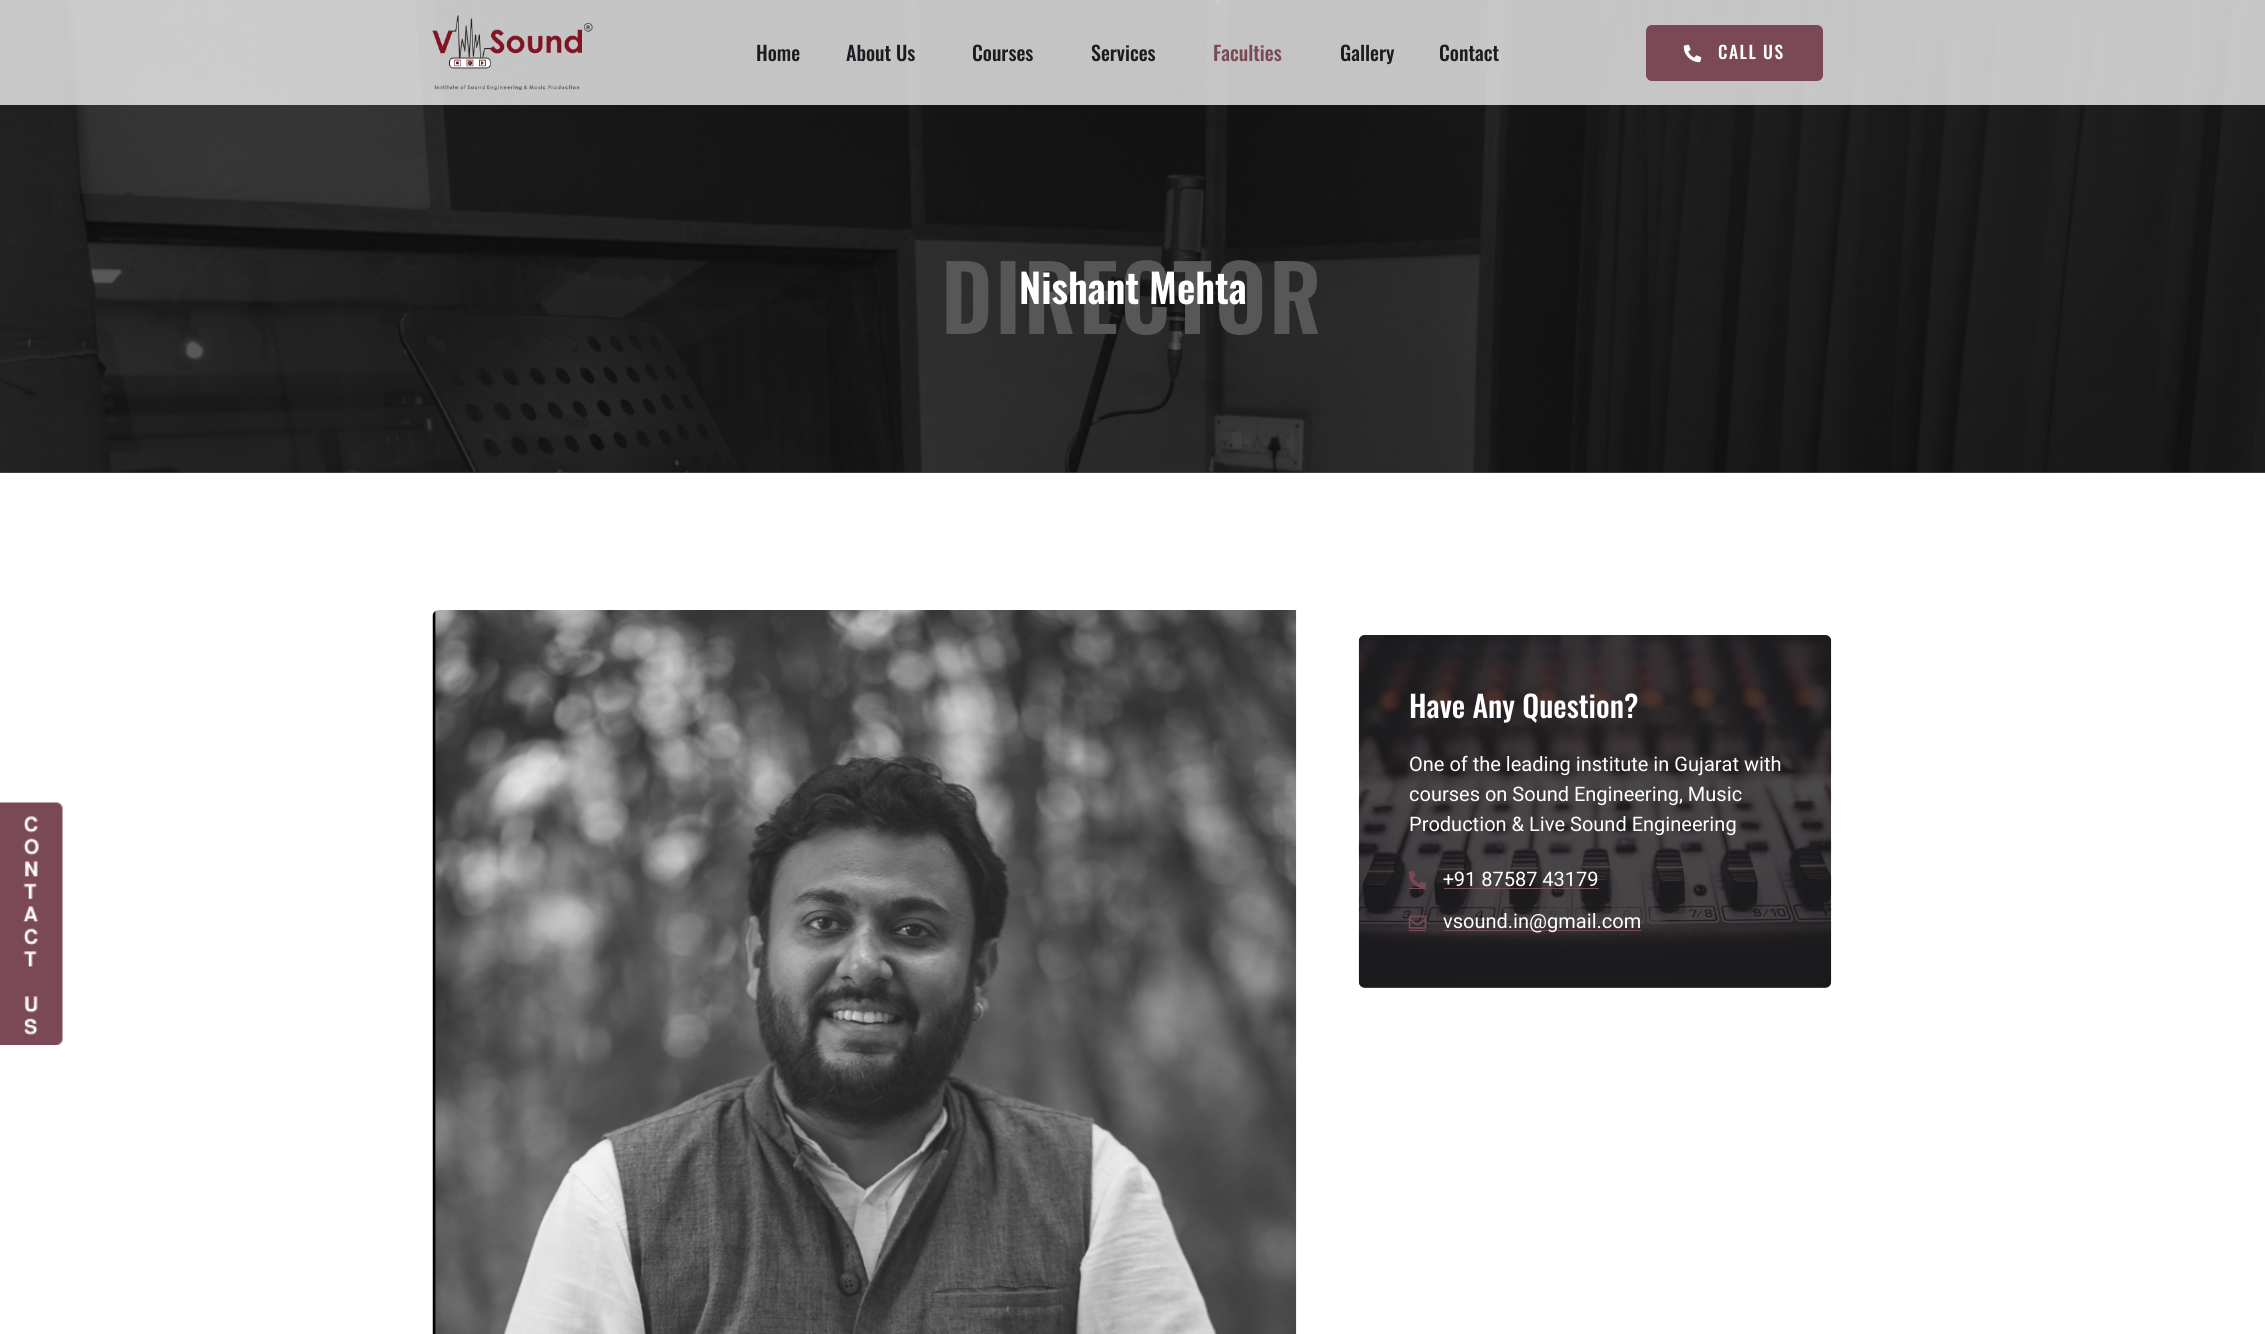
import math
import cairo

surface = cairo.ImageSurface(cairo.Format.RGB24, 2265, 1334)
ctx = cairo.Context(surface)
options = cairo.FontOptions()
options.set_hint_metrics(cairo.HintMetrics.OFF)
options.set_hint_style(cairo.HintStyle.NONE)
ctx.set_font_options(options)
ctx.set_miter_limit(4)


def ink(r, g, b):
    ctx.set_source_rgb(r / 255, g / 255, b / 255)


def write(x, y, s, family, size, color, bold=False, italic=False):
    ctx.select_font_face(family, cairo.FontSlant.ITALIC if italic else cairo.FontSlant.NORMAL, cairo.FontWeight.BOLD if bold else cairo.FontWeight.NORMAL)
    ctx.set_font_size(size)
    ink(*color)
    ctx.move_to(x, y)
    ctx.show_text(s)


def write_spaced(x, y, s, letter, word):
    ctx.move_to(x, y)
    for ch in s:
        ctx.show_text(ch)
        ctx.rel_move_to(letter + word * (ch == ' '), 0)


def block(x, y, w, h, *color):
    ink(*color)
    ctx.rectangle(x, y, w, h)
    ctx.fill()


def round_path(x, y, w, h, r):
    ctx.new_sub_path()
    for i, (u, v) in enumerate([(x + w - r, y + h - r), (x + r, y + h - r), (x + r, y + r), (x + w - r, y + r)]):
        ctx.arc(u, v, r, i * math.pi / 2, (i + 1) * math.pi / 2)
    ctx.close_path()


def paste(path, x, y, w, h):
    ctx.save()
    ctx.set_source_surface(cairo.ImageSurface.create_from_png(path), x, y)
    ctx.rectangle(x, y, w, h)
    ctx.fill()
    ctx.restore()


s1 = dict(family="Oswald Medium", size=20, color=(28, 27, 31))
s2 = dict(family="Oswald Medium", size=20, color=(123, 73, 85))
s3 = dict(family="Oswald SemiBold", size=40, color=(255, 255, 255))
s4 = dict(family="Oswald Medium", size=30, color=(255, 255, 255))
s5 = dict(family="Heebo", size=20, color=(255, 255, 255))

ink(255, 255, 255)
ctx.paint()
block(0, 472, 2265, 1, 89, 89, 89)
paste("pic1.png", 0, 802, 63, 243)
paste("pic4.png", 0, 0, 2265, 473)
ctx.set_source_rgba(1, 1, 1, 0.75)
ctx.rectangle(0, 0, 2265, 105)
ctx.fill()
paste("pic2.png", 432, 15, 161, 75)
write(756, 61, "Home", **s1)
write(846, 61, "About Us", **s1)
write(972, 61, "Courses", **s1)
write(1091, 61, "Services", **s1)
write(1213, 61, "Faculties", **s2)
write(1340, 61, "Gallery", **s1)
write(1439, 61, "Contact", **s1)
ink(123, 73, 85)
round_path(1646, 25, 177, 56, 6)
ctx.fill()
paste("pic3.png", 1683, 44, 19, 19)
ctx.set_font_size(17.5)
ink(255, 255, 255)
write_spaced(1718, 59, "CALL US", 1.5, 0)
ctx.select_font_face("Oswald SemiBold")
ctx.set_font_size(90)
ink(87, 87, 87)
write_spaced(941, 334, "DIRECTOR", 2.5, 0)
write(1019, 304, "Nishant Mehta", **s3)
paste("pic5.png", 432, 610, 865, 724)
paste("pic6.png", 1358, 635, 474, 353)
ctx.set_source_rgba(0.11, 0.106, 0.122, 0.8)
round_path(1359, 635, 472, 353, 6)
ctx.fill()
write(1409, 718, "Have Any Question?", **s4)
write(1409, 771, "One of the leading institute in Gujarat with", **s5)
write(1409, 801, "courses on Sound Engineering, Music", **s5)
write(1409, 831, "Production & Live Sound Engineering", **s5)
paste("pic7.png", 1408, 871, 19, 17)
block(1409, 888, 17, 1, 123, 73, 85)
write(1443, 886, "+91 87587 43179", **s5)
block(1444, 888, 155, 1, 123, 73, 85)
paste("pic8.png", 1408, 915, 19, 14)
block(1409, 930, 17, 1, 123, 73, 85)
block(1444, 930, 197, 1, 123, 73, 85)
write(1443, 928, "vsound.in@gmail.com", **s5)
surface.write_to_png("screenshot.png")
